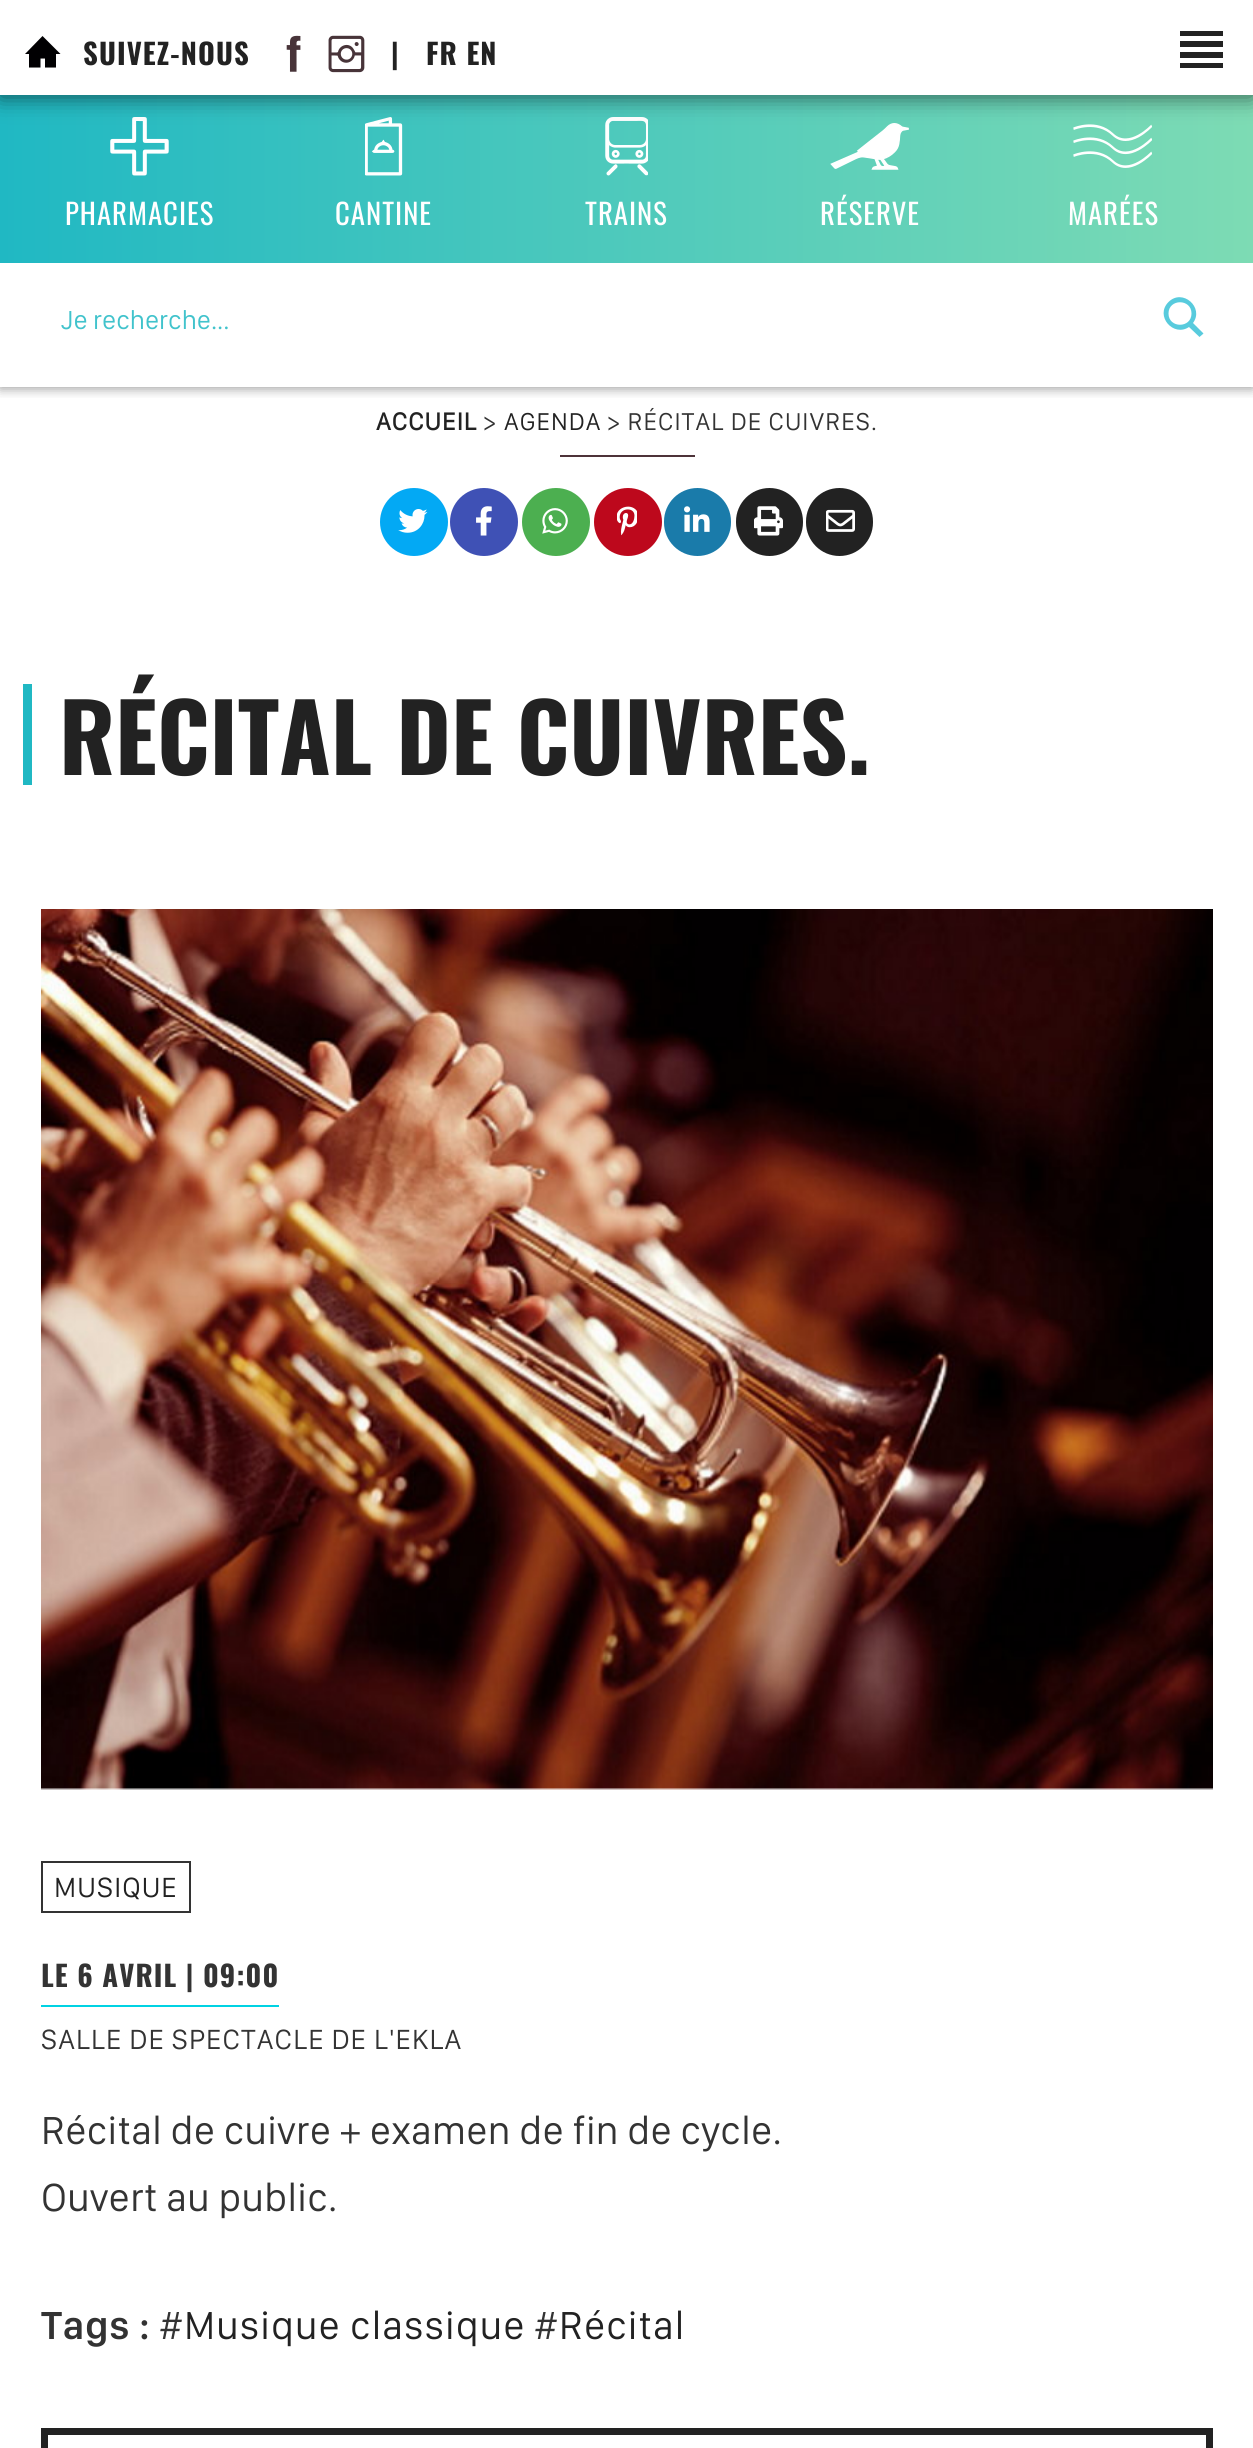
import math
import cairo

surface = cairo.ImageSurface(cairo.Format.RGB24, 1253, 2448)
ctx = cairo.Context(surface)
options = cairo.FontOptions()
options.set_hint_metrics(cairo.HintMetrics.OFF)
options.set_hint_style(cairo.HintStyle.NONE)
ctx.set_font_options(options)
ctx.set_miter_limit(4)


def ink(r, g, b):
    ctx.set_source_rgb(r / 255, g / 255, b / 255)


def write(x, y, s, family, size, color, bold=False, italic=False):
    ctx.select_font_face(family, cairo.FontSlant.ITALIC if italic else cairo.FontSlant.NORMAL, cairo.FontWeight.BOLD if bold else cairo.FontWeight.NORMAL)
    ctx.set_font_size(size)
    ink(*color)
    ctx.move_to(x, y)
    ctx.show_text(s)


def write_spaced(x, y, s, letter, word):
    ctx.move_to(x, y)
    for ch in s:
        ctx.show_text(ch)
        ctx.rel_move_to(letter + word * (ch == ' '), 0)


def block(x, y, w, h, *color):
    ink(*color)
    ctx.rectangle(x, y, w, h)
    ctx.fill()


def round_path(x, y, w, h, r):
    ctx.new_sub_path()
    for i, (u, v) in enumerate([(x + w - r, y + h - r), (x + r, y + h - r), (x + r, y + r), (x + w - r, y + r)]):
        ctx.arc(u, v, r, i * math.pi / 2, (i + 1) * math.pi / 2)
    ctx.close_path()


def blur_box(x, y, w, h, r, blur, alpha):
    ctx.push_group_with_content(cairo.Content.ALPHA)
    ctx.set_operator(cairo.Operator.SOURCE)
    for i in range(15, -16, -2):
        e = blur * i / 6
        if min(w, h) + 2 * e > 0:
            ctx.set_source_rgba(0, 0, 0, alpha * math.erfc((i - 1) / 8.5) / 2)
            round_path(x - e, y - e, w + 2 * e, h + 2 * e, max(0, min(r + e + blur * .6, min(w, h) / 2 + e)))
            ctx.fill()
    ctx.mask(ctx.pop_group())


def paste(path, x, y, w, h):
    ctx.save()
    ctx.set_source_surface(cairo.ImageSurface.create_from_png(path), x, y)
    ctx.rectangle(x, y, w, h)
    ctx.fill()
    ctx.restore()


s1 = dict(family="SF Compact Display", size=27, color=(65, 195, 204))
s2 = dict(family="Oswald", size=93.5, color=(34, 34, 34), bold=True)

ink(255, 255, 255)
ctx.paint()
ctx.save()
ctx.rectangle(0, 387, 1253, 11)
ctx.clip()
ink(0, 0, 0)
blur_box(0, 250, 1253, 139, 0, 5.5, 0.37)
ctx.restore()
gradient = cairo.LinearGradient(0, 174, 1253, 174)
gradient.add_color_stop_rgba(0, 0.125, 0.722, 0.765, 1)
gradient.add_color_stop_rgba(1, 0.49, 0.859, 0.706, 1)
ctx.set_source(gradient)
ctx.rectangle(0, 95, 1253, 168)
ctx.fill()
paste("pic3.png", 110, 117, 59, 59)
paste("pic4.png", 365, 117, 38, 59)
paste("pic5.png", 605, 117, 43, 59)
paste("pic6.png", 830, 123, 79, 47)
paste("pic7.png", 1073, 124, 79, 44)
ink(0, 0, 0)
blur_box(0, 2, 1253, 95, 0, 11, 0.57)
block(0, 0, 1253, 95, 255, 255, 255)
ink(1, 0, 2)
ctx.new_path()
ctx.move_to(29, 67.5)
ctx.line_to(40.5, 67.5)
ctx.line_to(40.5, 58.5)
ctx.line_to(45, 58.5)
ctx.line_to(45, 67.5)
ctx.line_to(56, 67.5)
ctx.line_to(56, 54)
ctx.line_to(60.5, 54)
ctx.line_to(42.5, 36)
ctx.line_to(25, 54)
ctx.line_to(29, 54)
ctx.close_path()
ctx.fill()
ctx.select_font_face("Oswald", cairo.FontSlant.NORMAL, cairo.FontWeight.BOLD)
ctx.set_font_size(28.75)
ink(34, 34, 34)
write_spaced(83, 65, "SUIVEZ-NOUS", 1.1, 0)
paste("pic1.png", 286, 35, 15, 37)
paste("pic2.png", 328, 35, 37, 38)
write_spaced(391, 65, "|", 1.1, 0)
write_spaced(426, 65, "FR EN", 1.1, 0)
ctx.new_path()
ctx.move_to(1180, 31)
ctx.line_to(1223, 31)
ctx.line_to(1223, 36)
ctx.line_to(1180, 36)
ctx.close_path()
ctx.move_to(1180, 41)
ctx.line_to(1223, 41)
ctx.line_to(1223, 47)
ctx.line_to(1180, 47)
ctx.close_path()
ctx.move_to(1180, 52)
ctx.line_to(1223, 52)
ctx.line_to(1223, 58)
ctx.line_to(1180, 58)
ctx.close_path()
ctx.move_to(1180, 63)
ctx.line_to(1223, 63)
ctx.line_to(1223, 68)
ctx.line_to(1180, 68)
ctx.close_path()
ctx.fill()
ctx.select_font_face("Oswald")
ink(255, 255, 255)
write_spaced(65, 225, "PHARMACIES", 1, 0)
write_spaced(335, 225, "CANTINE", 1, 0)
write_spaced(585, 225, "TRAINS", 1, 0)
write_spaced(820, 225, "RÉSERVE", 1, 0)
write_spaced(1068, 225, "MARÉES", 1, 0)
write(61, 329, "Je recherche...", **s1)
ink(88, 203, 221)
ctx.new_path()
ctx.move_to(1203.5, 333.5)
ctx.line_to(1193, 323)
ctx.curve_to(1204.5, 307.5, 1182.5, 288, 1168.5, 302)
ctx.curve_to(1154.5, 316, 1173.5, 337.5, 1189, 327)
ctx.line_to(1199.5, 337)
ctx.close_path()
ctx.move_to(1168.5, 313.5)
ctx.curve_to(1168.5, 298.5, 1191.5, 298.5, 1191.5, 313.5)
ctx.curve_to(1191.5, 328.5, 1168.5, 328.5, 1168.5, 313.5)
ctx.close_path()
ctx.fill()
ctx.select_font_face("SF Compact Display", cairo.FontSlant.NORMAL, cairo.FontWeight.BOLD)
ctx.set_font_size(25.25)
ink(34, 34, 34)
write_spaced(376, 430, "ACCUEIL", 1.1, 0)
ctx.select_font_face("SF Compact Display")
ink(51, 51, 51)
write_spaced(483, 430, ">", 1.1, 0)
ink(34, 34, 34)
write_spaced(504, 430, "AGENDA", 1.1, 0)
ink(51, 51, 51)
write_spaced(607, 430, "> RÉCITAL DE CUIVRES.", 1.1, 0)
block(560, 455, 135, 2, 77, 51, 57)
ink(3, 169, 244)
ctx.new_path()
ctx.arc(414, 522, 34, 0, 2 * math.pi)
ctx.fill()
paste("pic8.png", 398, 509, 30, 24)
ink(63, 81, 181)
ctx.arc(484, 522, 34, 0, 2 * math.pi)
ctx.fill()
paste("pic9.png", 476, 506, 16, 30)
ink(76, 175, 80)
ctx.arc(556, 522, 34, 0, 2 * math.pi)
ctx.fill()
paste("pic10.png", 542, 508, 26, 26)
ink(189, 8, 28)
ctx.arc(628, 522, 34, 0, 2 * math.pi)
ctx.fill()
paste("pic11.png", 617, 506, 20, 30)
ink(26, 123, 170)
round_path(664, 488, 67, 68, 33.5)
ctx.fill()
paste("pic12.png", 684, 506, 26, 26)
ink(34, 34, 34)
round_path(736, 488, 67, 68, 33.5)
ctx.fill()
paste("pic13.png", 754, 506, 29, 30)
round_path(806, 488, 67, 68, 33.5)
ctx.fill()
paste("pic14.png", 826, 509, 29, 23)
block(23, 684, 9, 101, 32, 184, 195)
write(59, 775, "RÉCITAL DE CUIVRES.", **s2)
paste("pic15.png", 41, 909, 1172, 881)
ctx.rectangle(42, 1862, 148, 50)
ink(51, 51, 51)
ctx.stroke()
ctx.select_font_face("SF Compact Display")
ctx.set_font_size(28.75)
ink(34, 34, 34)
write_spaced(54, 1897, "MUSIQUE", 1.1, 0)
block(41, 2005, 238, 2, 0, 210, 227)
ctx.select_font_face("Oswald", cairo.FontSlant.NORMAL, cairo.FontWeight.BOLD)
ink(51, 51, 51)
write_spaced(41, 1987, "LE 6 AVRIL | 09:00", 1.1, 0)
ctx.select_font_face("SF Compact Display")
write_spaced(41, 2049, "SALLE DE SPECTACLE DE L'EKLA", 1.1, 0)
ctx.set_font_size(40.5)
write_spaced(41, 2144, "Récital de cuivre + examen de fin de cycle.", 0.35, 0)
write_spaced(41, 2211, "Ouvert au public.", 0.35, 0)
ctx.select_font_face("SF Compact Display SemiBold")
write_spaced(41, 2339, "Tags :", 0.75, 0)
ctx.select_font_face("SF Compact Display")
write_spaced(159, 2339, "#", 1.1, 0)
ink(34, 34, 34)
write_spaced(184, 2339, "Musique classique", 1.1, 0)
ink(51, 51, 51)
write_spaced(534, 2339, "#", 1.1, 0)
ink(34, 34, 34)
write_spaced(559, 2339, "Récital", 1.1, 0)
ctx.rectangle(44.5, 2431.5, 1165, 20)
ctx.set_line_width(7)
ctx.stroke()
surface.write_to_png("screenshot.png")
